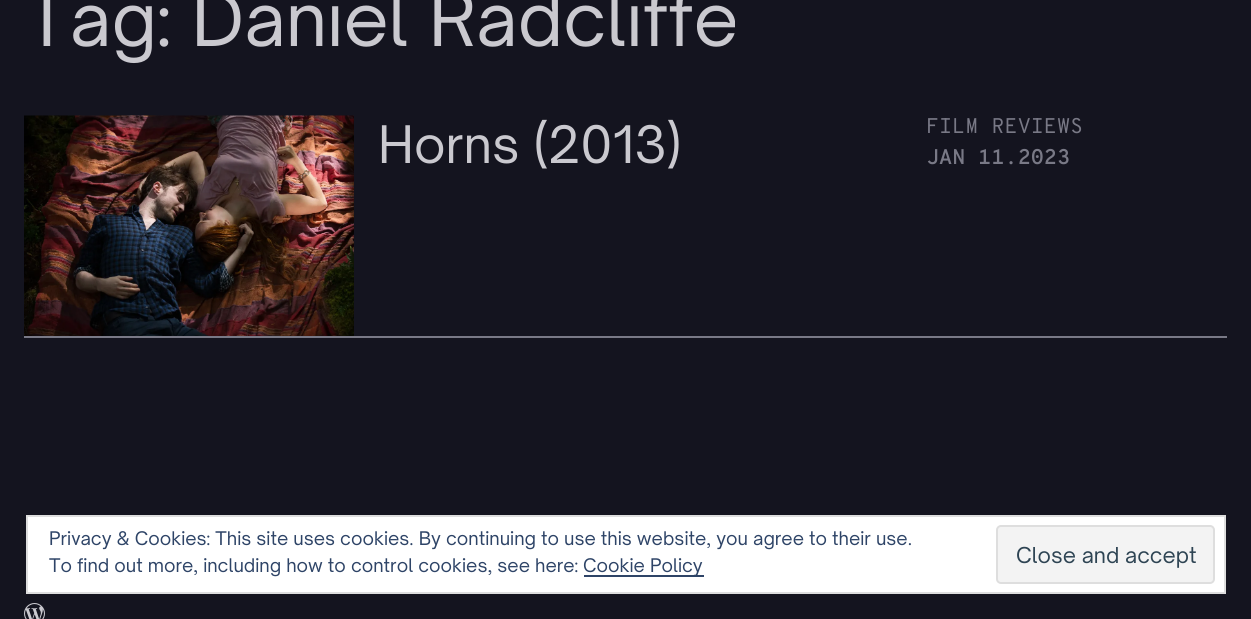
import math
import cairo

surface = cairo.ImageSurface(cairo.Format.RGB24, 1251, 619)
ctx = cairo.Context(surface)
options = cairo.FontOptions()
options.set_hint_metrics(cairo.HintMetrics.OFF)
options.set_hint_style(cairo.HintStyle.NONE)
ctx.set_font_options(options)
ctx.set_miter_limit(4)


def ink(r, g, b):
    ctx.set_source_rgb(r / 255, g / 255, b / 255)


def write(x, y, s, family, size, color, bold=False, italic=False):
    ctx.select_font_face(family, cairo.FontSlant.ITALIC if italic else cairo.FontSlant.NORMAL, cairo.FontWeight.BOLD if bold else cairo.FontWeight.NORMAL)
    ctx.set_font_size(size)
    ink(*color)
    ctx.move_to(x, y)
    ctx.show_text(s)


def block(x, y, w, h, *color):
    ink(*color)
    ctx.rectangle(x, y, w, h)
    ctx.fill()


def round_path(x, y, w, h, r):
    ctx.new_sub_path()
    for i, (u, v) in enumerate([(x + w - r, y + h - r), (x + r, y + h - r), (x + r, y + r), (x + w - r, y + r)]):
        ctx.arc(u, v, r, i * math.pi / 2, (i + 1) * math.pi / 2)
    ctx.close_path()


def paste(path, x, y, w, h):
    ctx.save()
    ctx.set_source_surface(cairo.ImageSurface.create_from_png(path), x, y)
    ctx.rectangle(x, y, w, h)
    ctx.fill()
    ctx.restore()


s1 = dict(family="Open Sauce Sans", size=71.9, color=(202, 201, 207))
s2 = dict(family="Open Sauce Sans", size=49.5, color=(202, 201, 207))
s3 = dict(family="Overpass Mono", size=21.25, color=(121, 121, 134))
s4 = dict(family="Overpass Mono SemiBold", size=21.25, color=(121, 121, 134))
s5 = dict(family="Open Sauce Sans", size=18, color=(46, 68, 103))
s6 = dict(family="Open Sauce Sans", size=21, color=(46, 68, 83))

ink(20, 20, 31)
ctx.paint()
write(24, 46, "Tag: Daniel Radcliffe", **s1)
block(24, 336, 1203, 2, 121, 121, 134)
paste("pic1.png", 24, 115, 330, 221)
write(378, 163, "Horns (2013)", **s2)
write(926, 133, "FILM REVIEWS", **s3)
write(926, 164, "JAN 11.2023", **s4)
paste("pic2.png", 24, 603, 21, 16)
ink(255, 255, 255)
ctx.rectangle(27, 516, 1198, 77)
ctx.fill_preserve()
ink(222, 222, 222)
ctx.stroke()
write(49, 545, "Privacy & Cookies: This site uses cookies. By continuing to use this website, you agree to their use.", **s5)
write(49, 572, "To find out more, including how to control cookies, see here:", **s5)
block(584, 575, 120, 2, 46, 68, 103)
write(583, 572, "Cookie Policy", **s5)
ink(243, 243, 243)
round_path(997, 526, 217, 57, 4)
ctx.fill_preserve()
ink(222, 222, 222)
ctx.stroke()
write(1016, 563, "Close and accept", **s6)
surface.write_to_png("screenshot.png")
